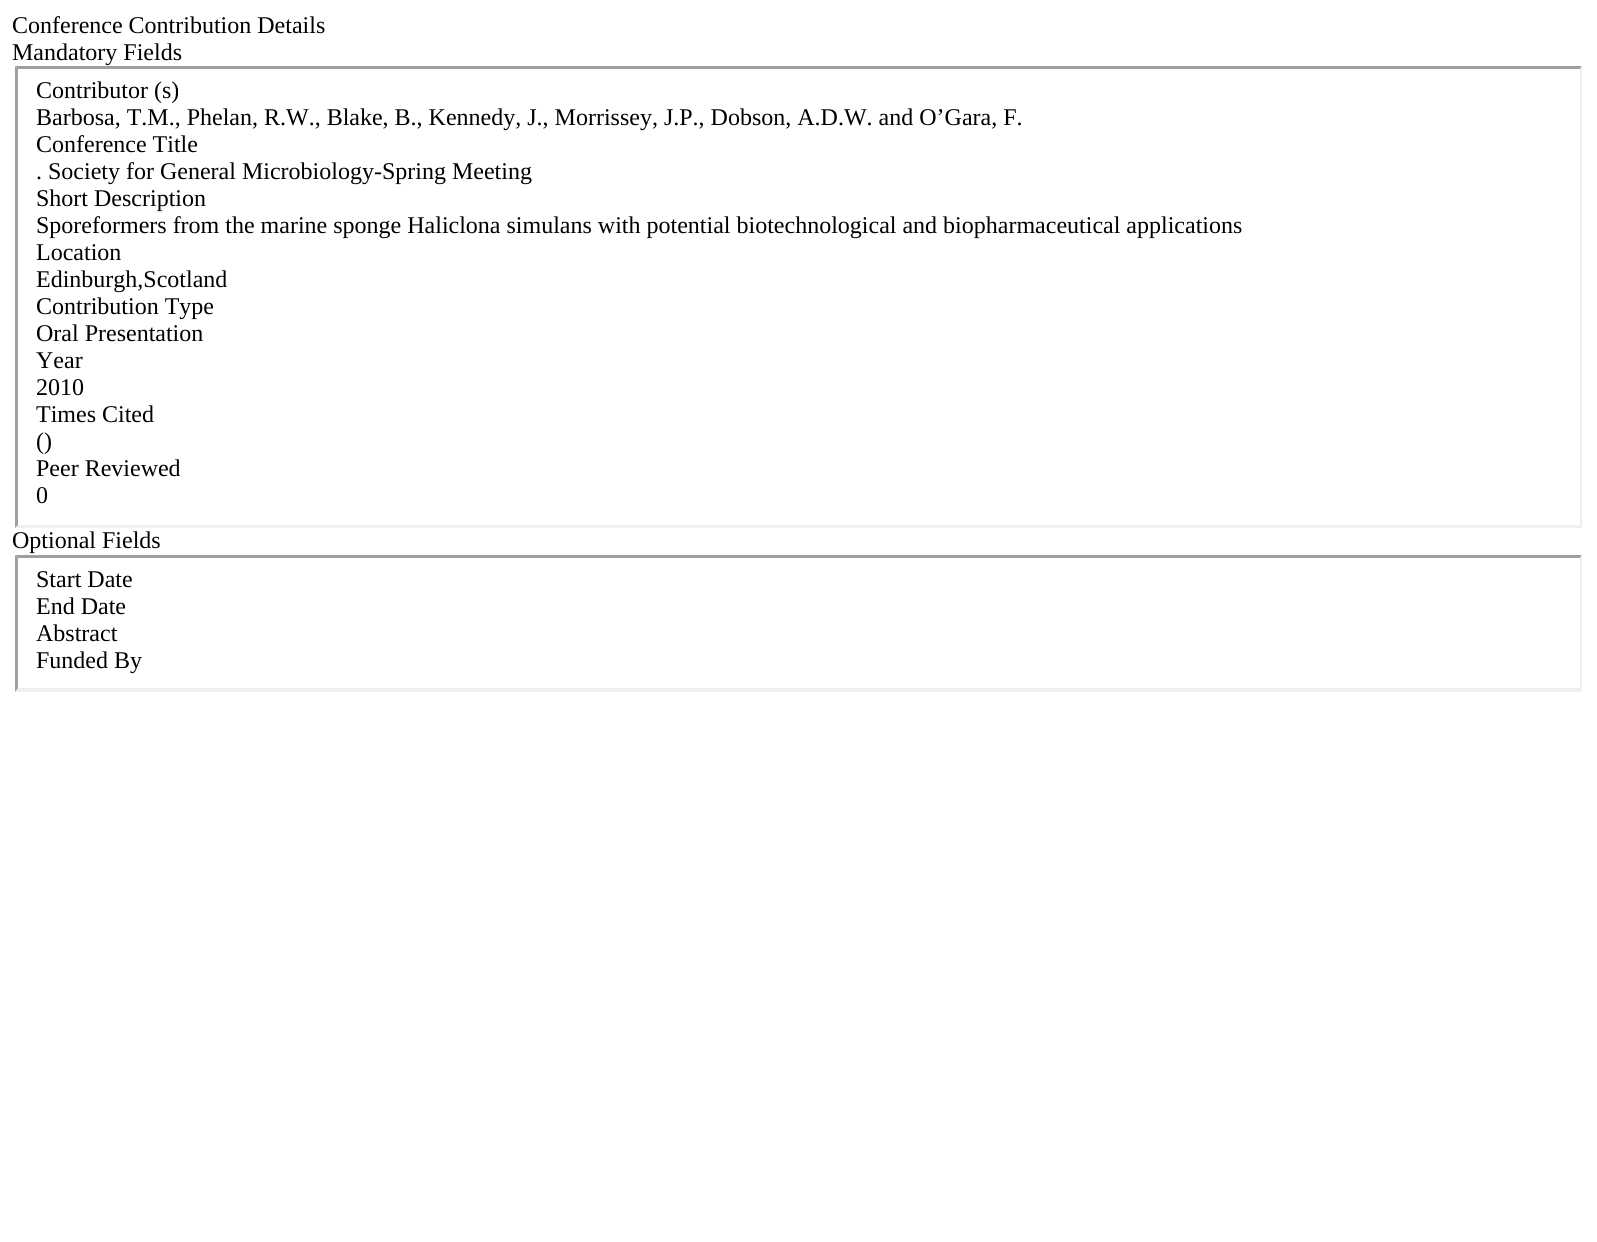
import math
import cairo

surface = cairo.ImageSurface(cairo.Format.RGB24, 1597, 1242)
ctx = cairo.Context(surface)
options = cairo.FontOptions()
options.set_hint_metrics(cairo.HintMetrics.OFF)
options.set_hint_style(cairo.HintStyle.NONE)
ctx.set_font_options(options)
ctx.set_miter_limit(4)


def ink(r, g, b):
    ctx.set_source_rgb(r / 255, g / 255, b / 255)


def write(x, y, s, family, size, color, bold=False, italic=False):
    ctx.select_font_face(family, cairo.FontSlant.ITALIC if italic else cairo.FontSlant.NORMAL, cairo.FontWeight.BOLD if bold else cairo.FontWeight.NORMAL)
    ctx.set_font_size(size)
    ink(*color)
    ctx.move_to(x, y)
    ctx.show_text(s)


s1 = dict(family="Liberation Serif", size=24, color=(0, 0, 0))

ink(255, 255, 255)
ctx.paint()
write(12, 33, "Conference Contribution Details", **s1)
write(12, 60, "Mandatory Fields", **s1)
ink(159, 159, 159)
ctx.new_path()
ctx.move_to(15, 66)
ctx.line_to(1582, 66)
ctx.line_to(1580, 69)
ctx.line_to(18, 69)
ctx.close_path()
ctx.fill()
ink(239, 239, 239)
ctx.new_path()
ctx.move_to(1582, 66)
ctx.line_to(1582, 528)
ctx.line_to(1580, 525)
ctx.line_to(1580, 69)
ctx.close_path()
ctx.fill()
ctx.new_path()
ctx.move_to(1582, 528)
ctx.line_to(15, 528)
ctx.line_to(18, 525)
ctx.line_to(1580, 525)
ctx.close_path()
ctx.fill()
ink(159, 159, 159)
ctx.new_path()
ctx.move_to(15, 528)
ctx.line_to(15, 66)
ctx.line_to(18, 69)
ctx.line_to(18, 525)
ctx.close_path()
ctx.fill()
write(36, 98, "Contributor (s)", **s1)
write(36, 125, "Barbosa, T.M., Phelan, R.W., Blake, B., Kennedy, J., Morrissey, J.P., Dobson, A.D.W. and O’Gara, F.", **s1)
write(36, 152, "Conference Title", **s1)
write(36, 179, ". Society for General Microbiology-Spring Meeting", **s1)
write(36, 206, "Short Description", **s1)
write(36, 233, "Sporeformers from the marine sponge Haliclona simulans with potential biotechnological and biopharmaceutical applications", **s1)
write(36, 260, "Location", **s1)
write(36, 287, "Edinburgh,Scotland", **s1)
write(36, 314, "Contribution Type", **s1)
write(36, 341, "Oral Presentation", **s1)
write(36, 368, "Year", **s1)
write(36, 395, "2010", **s1)
write(36, 422, "Times Cited", **s1)
write(36, 449, "()", **s1)
write(36, 476, "Peer Reviewed", **s1)
write(36, 503, "0", **s1)
write(12, 548, "Optional Fields", **s1)
ink(159, 159, 159)
ctx.new_path()
ctx.move_to(15, 555)
ctx.line_to(1582, 555)
ctx.line_to(1580, 558)
ctx.line_to(18, 558)
ctx.close_path()
ctx.fill()
ink(239, 239, 239)
ctx.new_path()
ctx.move_to(1582, 555)
ctx.line_to(1582, 692)
ctx.line_to(1580, 688)
ctx.line_to(1580, 558)
ctx.close_path()
ctx.fill()
ctx.new_path()
ctx.move_to(1582, 692)
ctx.line_to(15, 692)
ctx.line_to(18, 688)
ctx.line_to(1580, 688)
ctx.close_path()
ctx.fill()
ink(159, 159, 159)
ctx.new_path()
ctx.move_to(15, 692)
ctx.line_to(15, 555)
ctx.line_to(18, 558)
ctx.line_to(18, 688)
ctx.close_path()
ctx.fill()
write(36, 587, "Start Date", **s1)
write(36, 614, "End Date", **s1)
write(36, 641, "Abstract", **s1)
write(36, 668, "Funded By", **s1)
surface.write_to_png("screenshot.png")
